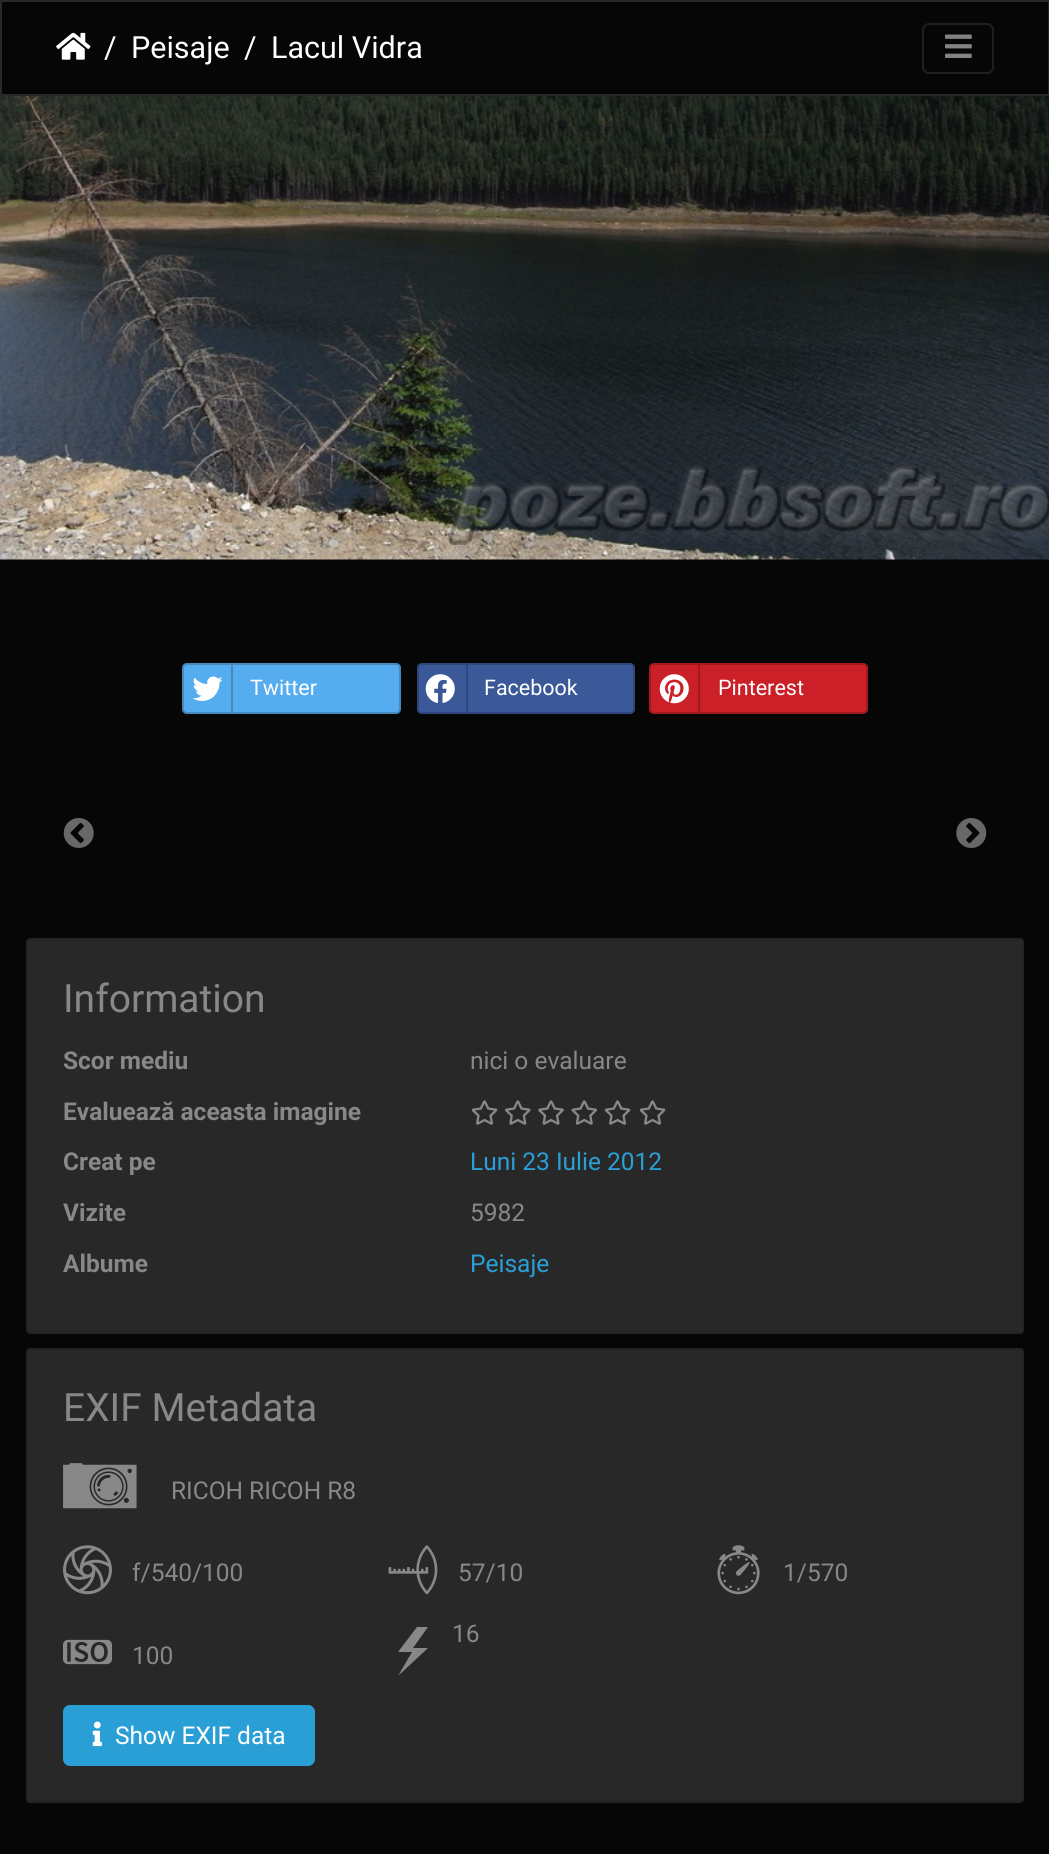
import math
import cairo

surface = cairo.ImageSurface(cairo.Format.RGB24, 1049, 1854)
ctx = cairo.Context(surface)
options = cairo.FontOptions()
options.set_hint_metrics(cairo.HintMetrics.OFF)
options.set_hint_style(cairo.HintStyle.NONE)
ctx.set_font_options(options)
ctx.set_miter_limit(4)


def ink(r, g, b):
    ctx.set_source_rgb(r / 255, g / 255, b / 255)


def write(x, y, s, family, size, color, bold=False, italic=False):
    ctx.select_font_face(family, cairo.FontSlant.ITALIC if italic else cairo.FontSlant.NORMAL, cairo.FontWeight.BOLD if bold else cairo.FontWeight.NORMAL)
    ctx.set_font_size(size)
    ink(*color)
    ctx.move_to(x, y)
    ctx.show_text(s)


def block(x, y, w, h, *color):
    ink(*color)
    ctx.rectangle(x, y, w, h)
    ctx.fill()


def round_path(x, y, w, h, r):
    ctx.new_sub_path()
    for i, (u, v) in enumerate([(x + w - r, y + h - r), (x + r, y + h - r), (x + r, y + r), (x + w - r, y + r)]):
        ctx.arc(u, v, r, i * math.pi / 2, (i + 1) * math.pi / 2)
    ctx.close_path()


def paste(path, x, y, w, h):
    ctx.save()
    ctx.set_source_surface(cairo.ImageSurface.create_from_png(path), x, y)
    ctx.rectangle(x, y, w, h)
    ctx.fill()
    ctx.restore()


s1 = dict(family="Roboto", size=30.5, color=(255, 255, 255))
s2 = dict(family="Roboto", size=21.5, color=(255, 255, 255))
s3 = dict(family="Roboto", size=39, color=(136, 136, 136))
s4 = dict(family="Roboto", size=24.5, color=(136, 136, 136), bold=True)
s5 = dict(family="Roboto", size=24.5, color=(136, 136, 136))
s6 = dict(family="Roboto", size=24.5, color=(42, 159, 214))
s7 = dict(family="Roboto", size=24.5, color=(255, 255, 255))

ink(6, 6, 6)
ctx.paint()
ctx.rectangle(1, 1, 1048, 94)
ink(40, 40, 40)
ctx.stroke()
paste("pic1.png", 56, 32, 35, 28)
write(104, 58, "/", **s1)
write(131, 58, "Peisaje", **s1)
write(244, 58, "/", **s1)
write(271, 58, "Lacul Vidra", **s1)
round_path(923, 24, 70, 49, 6)
ink(31, 31, 31)
ctx.stroke()
paste("pic2.png", 945, 34, 27, 24)
paste("pic3.png", 0, 96, 1049, 464)
ink(85, 172, 238)
round_path(182, 663, 219, 51, 5)
ctx.fill()
round_path(183, 664, 217, 49, 4)
ctx.set_source_rgba(0, 0, 0, 0.2)
ctx.stroke()
block(231, 665, 2, 47, 68, 138, 190)
paste("pic4.png", 192, 676, 31, 25)
write(250, 695, "Twitter", **s2)
ink(59, 89, 152)
round_path(417, 663, 218, 51, 5)
ctx.fill()
round_path(418, 664, 216, 49, 4)
ctx.set_source_rgba(0, 0, 0, 0.2)
ctx.stroke()
block(466, 665, 2, 47, 47, 71, 122)
paste("pic5.png", 425, 674, 30, 29)
write(484, 695, "Facebook", **s2)
ink(203, 32, 39)
round_path(649, 663, 219, 51, 5)
ctx.fill()
round_path(650, 664, 217, 49, 4)
ctx.set_source_rgba(0, 0, 0, 0.2)
ctx.stroke()
block(698, 665, 2, 47, 162, 26, 31)
paste("pic6.png", 659, 674, 30, 30)
write(718, 695, "Pinterest", **s2)
paste("pic7.png", 63, 818, 31, 30)
paste("pic8.png", 956, 818, 31, 30)
ink(40, 40, 40)
round_path(26, 938, 998, 396, 4)
ctx.fill()
round_path(27, 939, 996, 394, 3)
ctx.set_source_rgba(0, 0, 0, 0.12)
ctx.stroke()
write(63, 1012, "Information", **s3)
write(63, 1069, "Scor mediu", **s4)
write(470, 1069, "nici o evaluare", **s5)
write(63, 1120, "Evaluează aceasta imagine", **s4)
paste("pic9.png", 471, 1100, 27, 25)
paste("pic10.png", 505, 1100, 26, 25)
paste("pic11.png", 538, 1100, 26, 25)
paste("pic12.png", 571, 1100, 26, 25)
paste("pic9.png", 604, 1100, 27, 25)
paste("pic9.png", 639, 1100, 27, 25)
write(63, 1170, "Creat pe", **s4)
write(470, 1170, "Luni 23 Iulie 2012", **s6)
write(63, 1221, "Vizite", **s4)
write(470, 1221, "5982", **s5)
write(63, 1272, "Albume", **s4)
write(470, 1272, "Peisaje", **s6)
ink(40, 40, 40)
round_path(26, 1348, 998, 455, 4)
ctx.fill()
round_path(27, 1349, 996, 453, 3)
ctx.set_source_rgba(0, 0, 0, 0.12)
ctx.stroke()
write(63, 1421, "EXIF Metadata", **s3)
paste("pic13.png", 63, 1463, 74, 46)
write(171, 1499, "RICOH RICOH R8", **s5)
paste("pic14.png", 63, 1545, 49, 50)
write(132, 1581, "f/540/100", **s5)
paste("pic15.png", 388, 1545, 50, 50)
write(458, 1581, "57/10", **s5)
paste("pic16.png", 717, 1545, 43, 50)
write(783, 1581, "1/570", **s5)
ctx.new_path()
ctx.move_to(417, 1627)
ctx.line_to(398, 1652)
ctx.line_to(412, 1652)
ctx.line_to(398, 1676)
ctx.line_to(428, 1648)
ctx.line_to(413, 1648)
ctx.line_to(428, 1627)
ctx.close_path()
ctx.fill()
write(452, 1642, "16", **s5)
paste("pic17.png", 63, 1639, 49, 26)
write(132, 1664, "100", **s5)
ink(42, 159, 214)
round_path(64, 1706, 250, 59, 6)
ctx.fill_preserve()
ctx.stroke()
paste("pic18.png", 92, 1721, 10, 26)
write(115, 1744, "Show EXIF data", **s7)
surface.write_to_png("screenshot.png")
